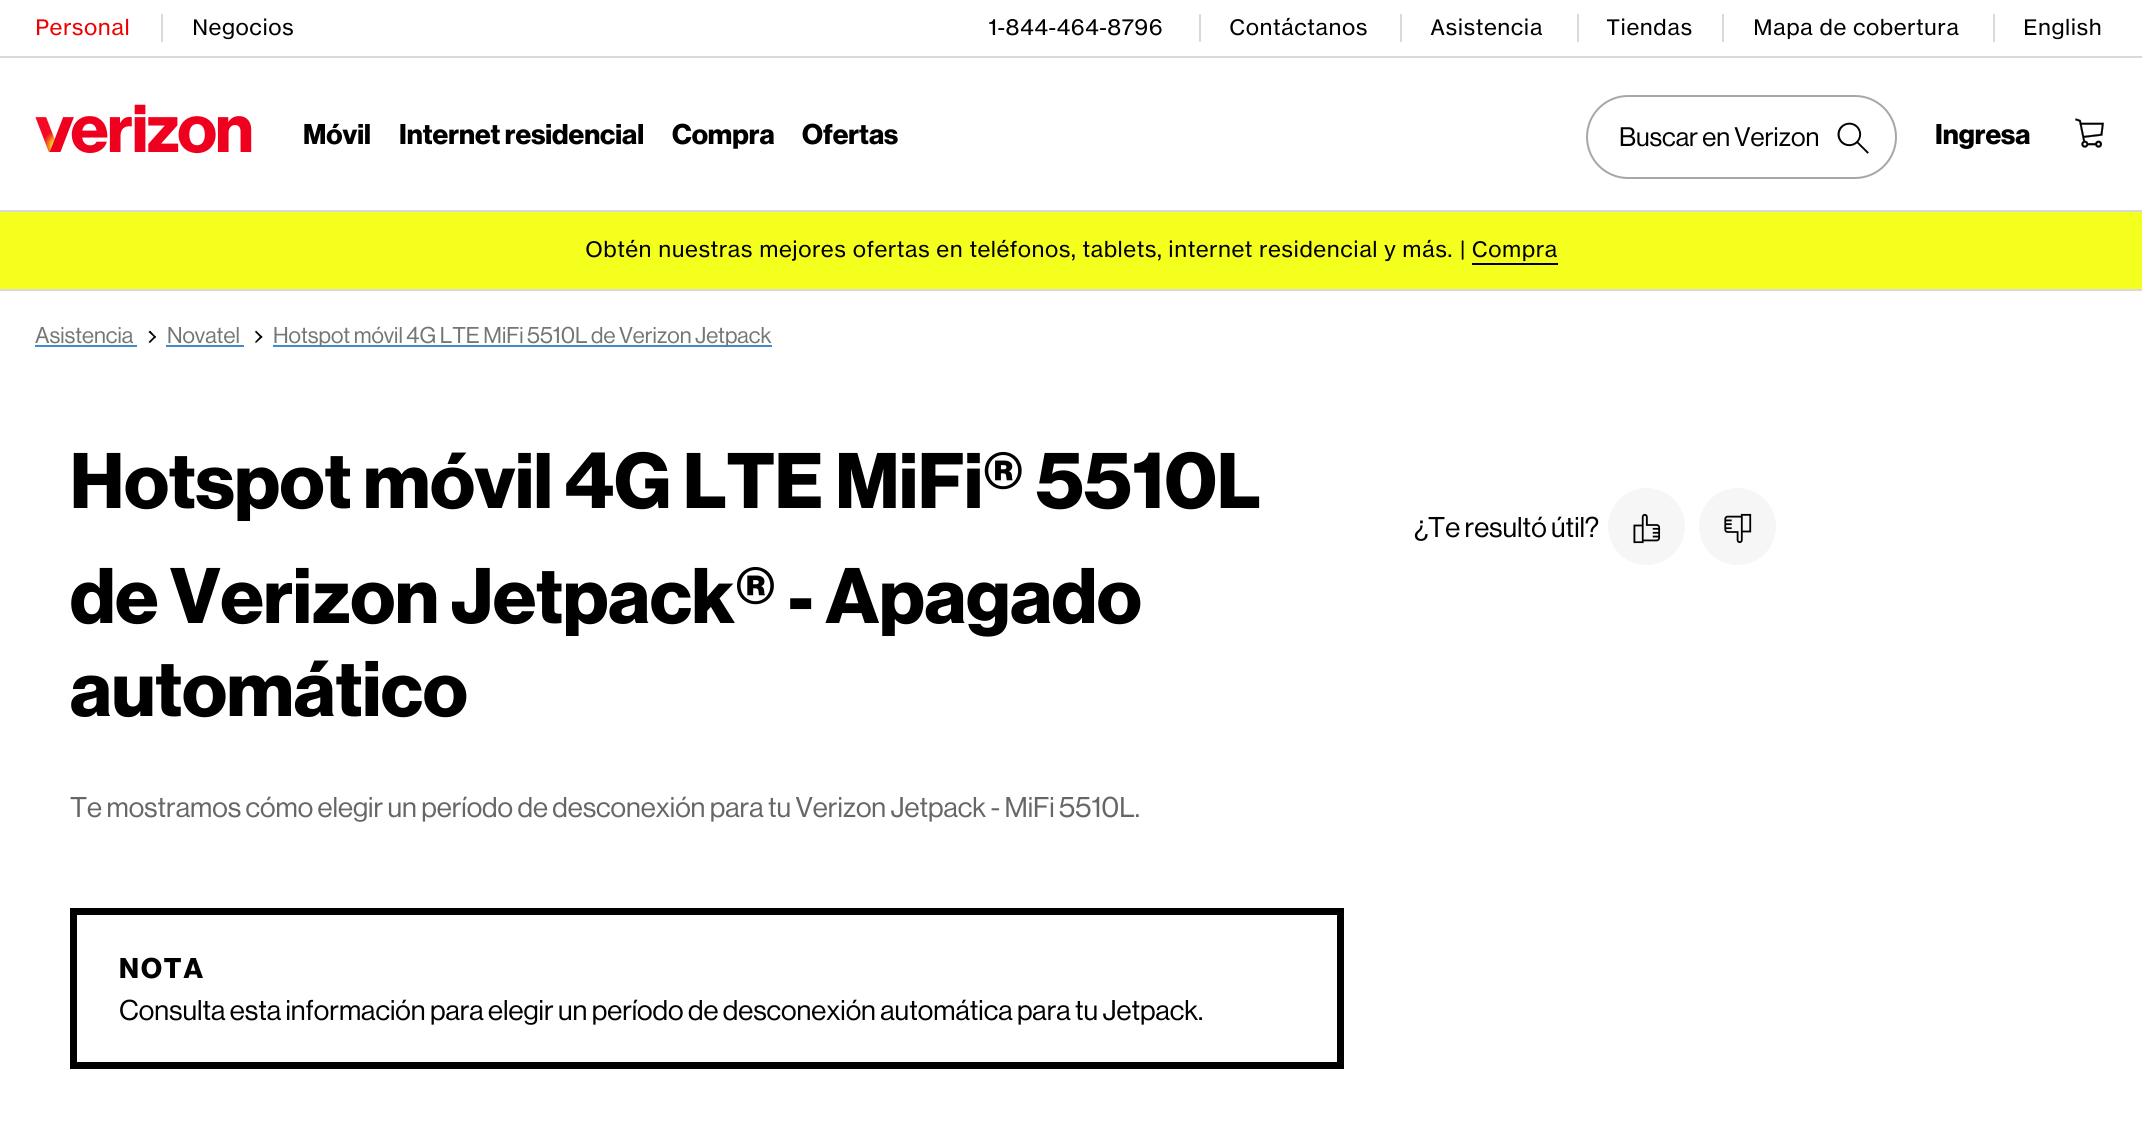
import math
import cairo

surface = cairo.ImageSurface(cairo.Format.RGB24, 2142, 1126)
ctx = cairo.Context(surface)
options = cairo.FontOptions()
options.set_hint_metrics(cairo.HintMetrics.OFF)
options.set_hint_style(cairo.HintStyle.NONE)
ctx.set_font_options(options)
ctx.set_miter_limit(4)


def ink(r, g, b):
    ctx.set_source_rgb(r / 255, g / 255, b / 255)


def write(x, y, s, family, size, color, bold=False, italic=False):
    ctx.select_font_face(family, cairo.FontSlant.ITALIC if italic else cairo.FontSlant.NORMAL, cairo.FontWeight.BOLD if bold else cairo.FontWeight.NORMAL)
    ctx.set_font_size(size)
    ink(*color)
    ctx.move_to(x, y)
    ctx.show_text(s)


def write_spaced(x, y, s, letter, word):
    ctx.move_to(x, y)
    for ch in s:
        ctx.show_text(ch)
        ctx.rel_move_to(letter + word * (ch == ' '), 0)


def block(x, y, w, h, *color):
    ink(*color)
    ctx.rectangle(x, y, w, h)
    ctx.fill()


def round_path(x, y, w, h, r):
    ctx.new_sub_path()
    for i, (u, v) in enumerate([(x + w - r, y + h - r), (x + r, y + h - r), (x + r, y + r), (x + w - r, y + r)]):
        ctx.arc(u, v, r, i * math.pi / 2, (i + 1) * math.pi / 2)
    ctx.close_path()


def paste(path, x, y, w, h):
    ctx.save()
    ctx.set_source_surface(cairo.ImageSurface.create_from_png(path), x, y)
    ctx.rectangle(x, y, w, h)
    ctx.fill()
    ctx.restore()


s1 = dict(family="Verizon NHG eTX", size=21, color=(238, 0, 0))
s2 = dict(family="Verizon NHG eTX", size=21, color=(0, 0, 0))
s3 = dict(family="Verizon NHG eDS", size=28, color=(0, 0, 0), bold=True)
s4 = dict(family="Verizon NHG eDS", size=26.25, color=(0, 0, 0))
s5 = dict(family="Verizon NHG eDS", size=22.4, color=(116, 118, 118))
s6 = dict(family="Verizon NHG eDS", size=77, color=(0, 0, 0), bold=True)
s7 = dict(family="Verizon NHG eDS", size=28, color=(102, 102, 102))
s8 = dict(family="Verizon NHG eDS", size=28, color=(0, 0, 0))

ink(255, 255, 255)
ctx.paint()
block(0, 289, 2142, 2, 216, 218, 218)
write(35, 35, "Personal", **s1)
block(161, 14, 2, 28, 216, 218, 218)
write(192, 35, "Negocios", **s2)
write(988, 35, "1-844-464-8796", **s2)
block(1199, 14, 2, 28, 216, 218, 218)
write(1229, 35, "Contáctanos", **s2)
block(1400, 14, 2, 28, 216, 218, 218)
write(1430, 35, "Asistencia", **s2)
block(1577, 14, 2, 28, 216, 218, 218)
write(1606, 35, "Tiendas", **s2)
block(1722, 14, 2, 28, 216, 218, 218)
write(1753, 35, "Mapa de cobertura", **s2)
block(1993, 14, 2, 28, 216, 218, 218)
write(2023, 35, "English", **s2)
paste("pic1.png", 35, 104, 217, 50)
write(303, 144, "Móvil", **s3)
write(399, 144, "Internet residencial", **s3)
write(672, 144, "Compra", **s3)
write(802, 144, "Ofertas", **s3)
paste("pic2.png", 1837, 122, 32, 32)
round_path(1587, 96, 309, 82, 41)
ink(167, 167, 167)
ctx.stroke()
write(1619, 146, "Buscar en Verizon", **s4)
write(1935, 144, "Ingresa", **s3)
paste("pic3.png", 2075, 118, 29, 30)
block(0, 56, 2142, 2, 216, 218, 218)
block(0, 212, 2142, 77, 245, 255, 30)
block(0, 210, 2142, 2, 216, 218, 218)
write(585, 257, "Obtén nuestras mejores ofertas en teléfonos, tablets, internet residencial y más.", **s2)
write(1460, 257, "| Compra", **s2)
block(1472, 263, 86, 2, 0, 0, 0)
write(35, 343, "Asistencia", **s5)
block(35, 345, 102, 2, 66, 139, 202)
ink(0, 0, 0)
ctx.new_path()
ctx.move_to(148.5, 332)
ctx.line_to(150, 330.5)
ctx.line_to(156, 337)
ctx.line_to(155, 338)
ctx.close_path()
ctx.fill()
ctx.new_path()
ctx.move_to(148.5, 342)
ctx.line_to(155, 335.5)
ctx.line_to(156, 337)
ctx.line_to(150, 343)
ctx.close_path()
ctx.fill()
write(167, 343, "Novatel", **s5)
block(166, 345, 78, 2, 66, 139, 202)
ink(0, 0, 0)
ctx.new_path()
ctx.move_to(255, 332)
ctx.line_to(256, 330.5)
ctx.line_to(262.5, 337)
ctx.line_to(261, 338)
ctx.close_path()
ctx.fill()
ctx.new_path()
ctx.move_to(255, 342)
ctx.line_to(261, 335.5)
ctx.line_to(262.5, 337)
ctx.line_to(256, 343)
ctx.close_path()
ctx.fill()
block(273, 345, 499, 2, 66, 139, 202)
write(273, 343, "Hotspot móvil 4G LTE MiFi 5510L de Verizon Jetpack", **s5)
write(70, 508, "Hotspot móvil 4G LTE MiFi® 5510L", **s6)
write(70, 623, "de Verizon Jetpack® - Apagado", **s6)
write(70, 716, "automático", **s6)
write(70, 817, "Te mostramos cómo elegir un período de desconexión para tu Verizon Jetpack - MiFi 5510L.", **s7)
ctx.rectangle(73.5, 911.5, 1267, 154)
ink(0, 0, 0)
ctx.set_line_width(7)
ctx.stroke()
ctx.select_font_face("Verizon NHG eDS", cairo.FontSlant.NORMAL, cairo.FontWeight.BOLD)
write_spaced(119, 978, "NOTA", 2, 0)
write(119, 1020, "Consulta esta información para elegir un período de desconexión automática para tu Jetpack.", **s8)
write(1414, 537, "¿Te resultó útil?", **s8)
ink(246, 246, 246)
ctx.new_path()
ctx.arc(1646.5, 526.5, 38.5, 0, 2 * math.pi)
ctx.fill()
paste("pic4.png", 1633, 513, 28, 31)
ctx.arc(1737.5, 526.5, 38.5, 0, 2 * math.pi)
ctx.fill()
paste("pic5.png", 1724, 513, 28, 31)
surface.write_to_png("screenshot.png")
